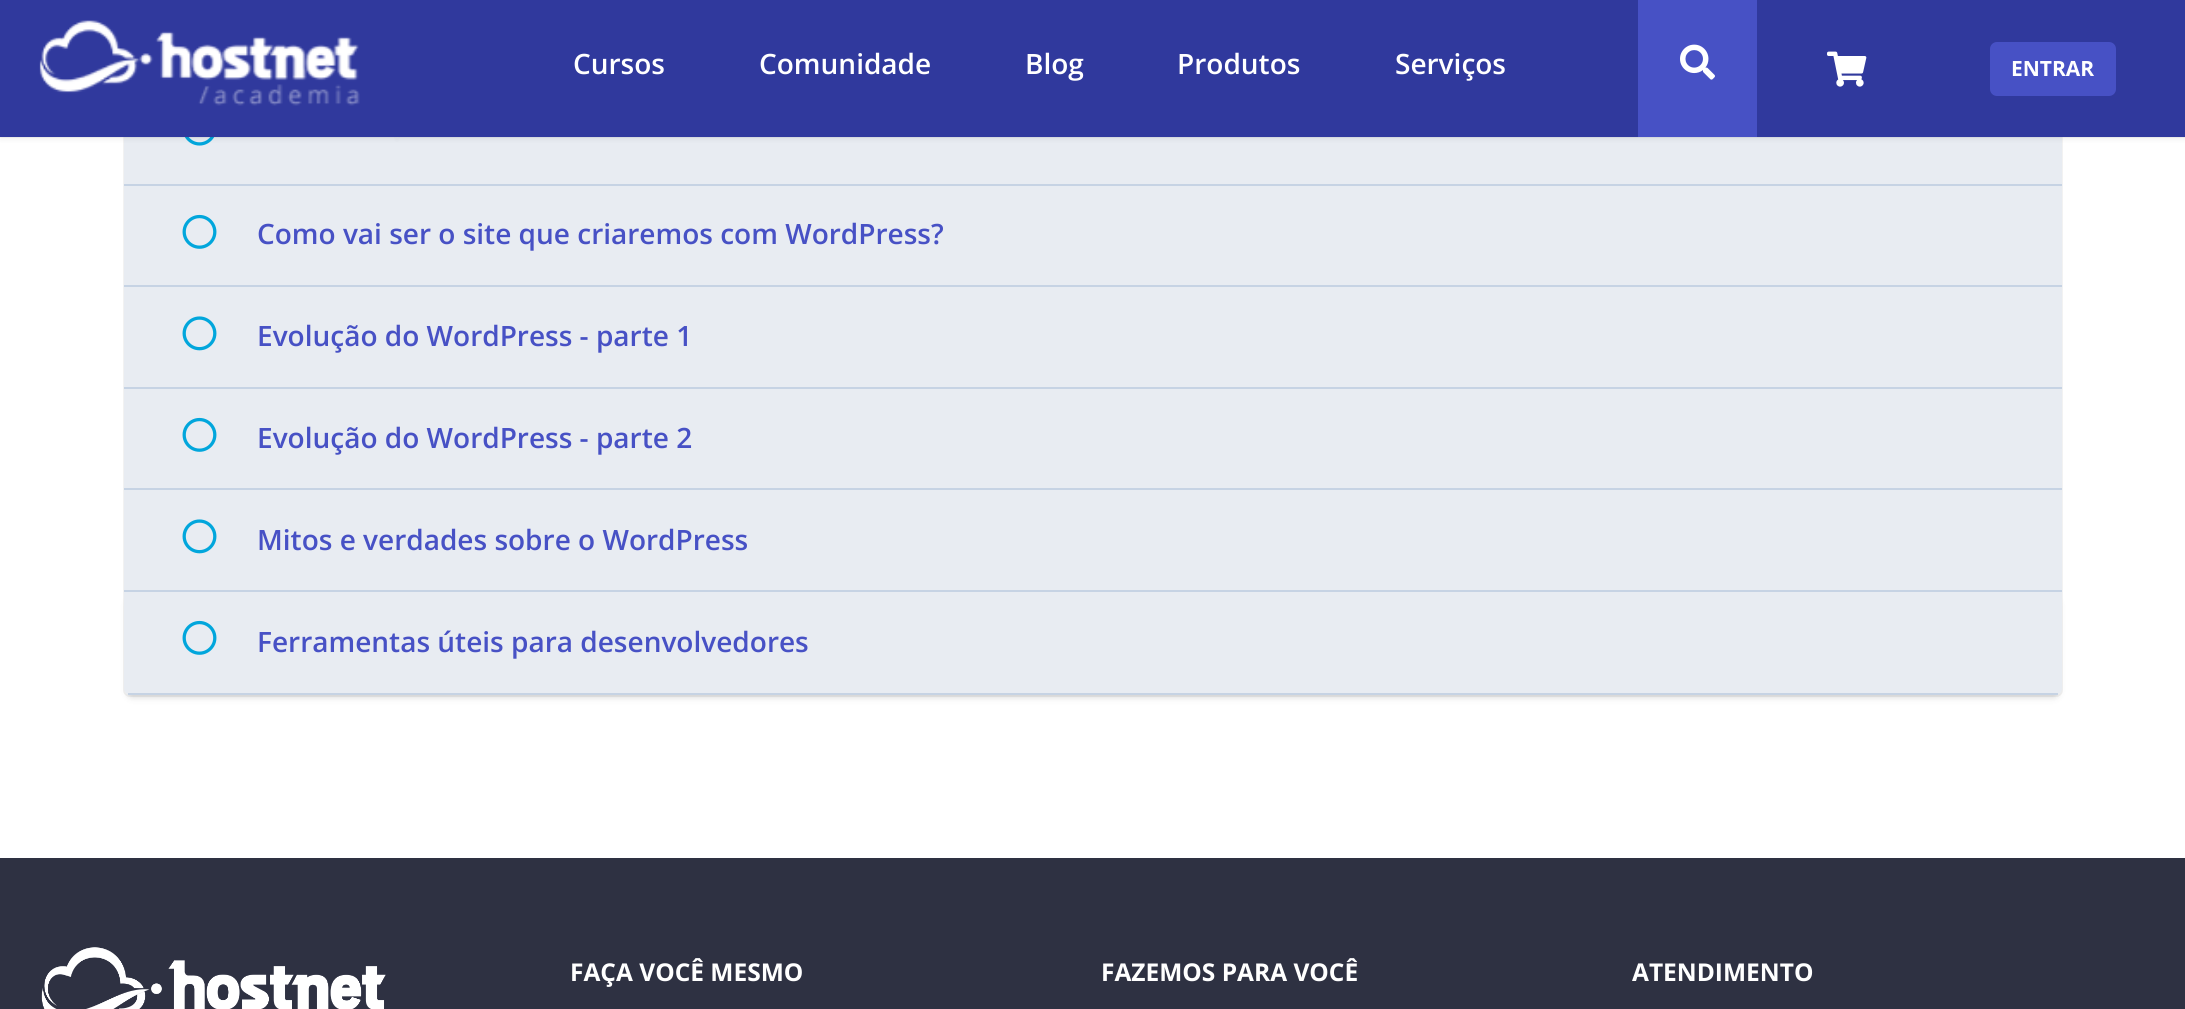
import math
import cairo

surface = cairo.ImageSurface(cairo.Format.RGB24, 2185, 1009)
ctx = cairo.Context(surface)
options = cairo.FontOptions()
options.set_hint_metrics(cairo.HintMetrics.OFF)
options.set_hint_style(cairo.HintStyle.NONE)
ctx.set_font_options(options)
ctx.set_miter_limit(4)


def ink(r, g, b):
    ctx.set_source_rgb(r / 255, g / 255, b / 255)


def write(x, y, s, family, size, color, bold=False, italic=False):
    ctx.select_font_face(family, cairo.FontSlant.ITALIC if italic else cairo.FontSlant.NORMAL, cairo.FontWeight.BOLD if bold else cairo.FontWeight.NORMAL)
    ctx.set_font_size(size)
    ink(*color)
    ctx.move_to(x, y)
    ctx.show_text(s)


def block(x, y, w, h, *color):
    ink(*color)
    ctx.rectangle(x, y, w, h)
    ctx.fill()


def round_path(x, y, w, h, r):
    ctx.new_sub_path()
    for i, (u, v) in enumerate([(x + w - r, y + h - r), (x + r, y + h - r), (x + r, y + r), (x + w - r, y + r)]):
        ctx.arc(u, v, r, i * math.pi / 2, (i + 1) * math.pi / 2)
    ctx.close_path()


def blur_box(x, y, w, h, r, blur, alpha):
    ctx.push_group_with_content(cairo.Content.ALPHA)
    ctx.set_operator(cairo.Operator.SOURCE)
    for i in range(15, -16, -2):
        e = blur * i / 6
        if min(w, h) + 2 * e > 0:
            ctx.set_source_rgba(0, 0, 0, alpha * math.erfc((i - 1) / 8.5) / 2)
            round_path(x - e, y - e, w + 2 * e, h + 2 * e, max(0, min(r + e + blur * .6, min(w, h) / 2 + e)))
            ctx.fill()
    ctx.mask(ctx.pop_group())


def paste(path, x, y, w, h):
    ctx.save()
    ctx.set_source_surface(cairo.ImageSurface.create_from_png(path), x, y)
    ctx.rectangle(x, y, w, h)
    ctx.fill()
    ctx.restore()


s1 = dict(family="Open Sans SemiBold", size=28, color=(255, 255, 255))
s2 = dict(family="Open Sans", size=21, color=(255, 255, 255), bold=True)
s3 = dict(family="Open Sans SemiBold", size=28, color=(71, 81, 197))
s4 = dict(family="Open Sans", size=24.5, color=(255, 255, 255), bold=True)

ink(46, 49, 66)
ctx.paint()
block(0, 137, 2185, 721, 255, 255, 255)
round_path(124, -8, 1938, 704, 6)
ink(242, 242, 242)
ctx.stroke()
block(124, 137, 1938, 47, 232, 236, 242)
ctx.set_source_rgba(0, 0, 0, 0.05)
ctx.new_path()
ctx.move_to(397, 2)
ctx.line_to(397, 138)
ctx.line_to(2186, 138)
ctx.line_to(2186, 2)
ctx.line_to(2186, 136)
ctx.line_to(397, 136)
ctx.close_path()
ctx.fill()
ink(0, 0, 0)
blur_box(397, 4, 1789, 136, 0, 2, 0.05)
paste("pic4.png", 184, 137, 31, 9)
ctx.set_source_rgba(0, 0, 0, 0.05)
ctx.rectangle(0, 137, 397, 1)
ctx.fill()
ink(0, 0, 0)
blur_box(0, 4, 397, 136, 0, 2, 0.05)
block(0, 0, 2185, 137, 48, 57, 157)
paste("pic1.png", 39, 20, 321, 86)
write(573, 74, "Cursos", **s1)
write(759, 74, "Comunidade", **s1)
write(1025, 74, "Blog", **s1)
write(1177, 74, "Produtos", **s1)
write(1395, 74, "Serviços", **s1)
block(1638, 0, 119, 137, 71, 81, 197)
paste("pic2.png", 1680, 44, 35, 36)
paste("pic3.png", 1827, 51, 40, 36)
round_path(1990, 42, 126, 54, 7)
ctx.fill()
write(2011, 76, "ENTRAR", **s2)
block(124, 184, 1938, 2, 198, 211, 228)
block(124, 186, 1938, 99, 232, 236, 242)
block(124, 285, 1938, 2, 198, 211, 228)
paste("pic5.png", 182, 214, 35, 35)
write(257, 244, "Como vai ser o site que criaremos com WordPress?", **s3)
block(124, 287, 1938, 100, 232, 236, 242)
block(124, 387, 1938, 2, 198, 211, 228)
paste("pic6.png", 182, 316, 35, 35)
write(257, 346, "Evolução do WordPress - parte 1", **s3)
block(124, 389, 1938, 99, 232, 236, 242)
block(124, 488, 1938, 2, 198, 211, 228)
paste("pic5.png", 182, 417, 35, 35)
write(257, 448, "Evolução do WordPress - parte 2", **s3)
block(124, 490, 1938, 100, 232, 236, 242)
block(124, 590, 1938, 2, 198, 211, 228)
paste("pic6.png", 182, 519, 35, 35)
write(257, 550, "Mitos e verdades sobre o WordPress", **s3)
ink(50, 50, 50)
blur_box(128, 600, 1930, 97, 4, 3.5, 0.2)
ink(232, 236, 242)
ctx.new_path()
ctx.move_to(124, 592)
ctx.line_to(2062, 592)
ctx.line_to(2062, 688)
ctx.curve_to(2062, 692, 2059, 695, 2055, 695)
ctx.line_to(131, 695)
ctx.curve_to(127, 695, 124, 692, 124, 688)
ctx.close_path()
ctx.fill()
block(128, 693, 1930, 2, 198, 211, 228)
paste("pic5.png", 182, 620, 35, 35)
write(257, 652, "Ferramentas úteis para desenvolvedores", **s3)
paste("pic7.png", 41, 947, 345, 62)
write(570, 981, "FAÇA VOCÊ MESMO", **s4)
write(1101, 981, "FAZEMOS PARA VOCÊ", **s4)
write(1632, 981, "ATENDIMENTO", **s4)
surface.write_to_png("screenshot.png")
